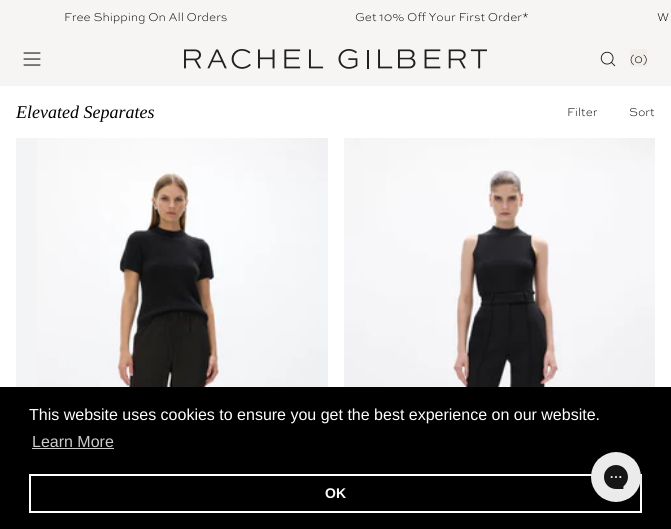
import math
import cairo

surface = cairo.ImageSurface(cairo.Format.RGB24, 671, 529)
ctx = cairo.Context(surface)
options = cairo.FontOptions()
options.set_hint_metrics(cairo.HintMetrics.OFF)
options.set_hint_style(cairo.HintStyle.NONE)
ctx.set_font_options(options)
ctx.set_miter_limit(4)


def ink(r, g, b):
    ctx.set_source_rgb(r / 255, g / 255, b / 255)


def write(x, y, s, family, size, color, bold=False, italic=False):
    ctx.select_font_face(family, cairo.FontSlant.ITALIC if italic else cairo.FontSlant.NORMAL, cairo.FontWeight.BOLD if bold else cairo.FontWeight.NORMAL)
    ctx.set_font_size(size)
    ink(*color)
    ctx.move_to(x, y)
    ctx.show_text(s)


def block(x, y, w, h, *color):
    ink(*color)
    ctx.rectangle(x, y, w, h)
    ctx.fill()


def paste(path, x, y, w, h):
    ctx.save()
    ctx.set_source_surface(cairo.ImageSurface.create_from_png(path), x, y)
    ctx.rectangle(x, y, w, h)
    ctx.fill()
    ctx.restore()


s1 = dict(family="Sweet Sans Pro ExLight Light", size=12, color=(0, 0, 0))
s2 = dict(family="Liberation Serif", size=18, color=(0, 0, 0), italic=True)
s3 = dict(family="Liberation Sans", size=16, color=(255, 255, 255))
s4 = dict(family="Liberation Sans", size=16, color=(204, 204, 204))
s5 = dict(family="Liberation Sans", size=14, color=(255, 255, 255), bold=True)

ink(255, 255, 255)
ctx.paint()
block(0, 0, 671, 86, 247, 245, 244)
write(64, 21, "Free Shipping On All Orders", **s1)
write(355, 21, "Get 10% Off Your First Order*", **s1)
write(657, 21, "W", **s1)
ctx.new_path()
ctx.move_to(24, 59)
ctx.line_to(40, 59)
ctx.move_to(24, 53)
ctx.line_to(40, 53)
ctx.move_to(24, 65)
ctx.line_to(40, 65)
ctx.set_line_width(1)
ctx.set_line_cap(cairo.LineCap.ROUND)
ctx.set_line_join(cairo.LineJoin.ROUND)
ctx.stroke()
paste("pic1.png", 184, 49, 303, 20)
paste("pic2.png", 600, 51, 16, 16)
block(630, 49, 17, 18, 242, 239, 235)
write(630, 63, "(0)", **s1)
write(16, 118, "Elevated Separates", **s2)
write(567, 116, "Filter", **s1)
write(629, 116, "Sort", **s1)
block(16, 138, 21, 249, 243, 244, 246)
paste("pic3.png", 37, 138, 291, 249)
paste("pic4.png", 344, 138, 311, 249)
block(0, 387, 671, 142, 0, 0, 0)
write(29, 420, "This website uses cookies to ensure you get the best experience on our website.", **s3)
write(32, 447, "Learn More", **s4)
block(32, 448, 82, 1, 204, 204, 204)
ctx.rectangle(30, 475, 611, 37)
ink(255, 255, 255)
ctx.set_line_width(2)
ctx.set_line_cap(cairo.LineCap.BUTT)
ctx.set_line_join(cairo.LineJoin.MITER)
ctx.stroke()
write(325, 498, "OK", **s5)
paste("pic5.png", 589, 452, 53, 50)
surface.write_to_png("screenshot.png")
